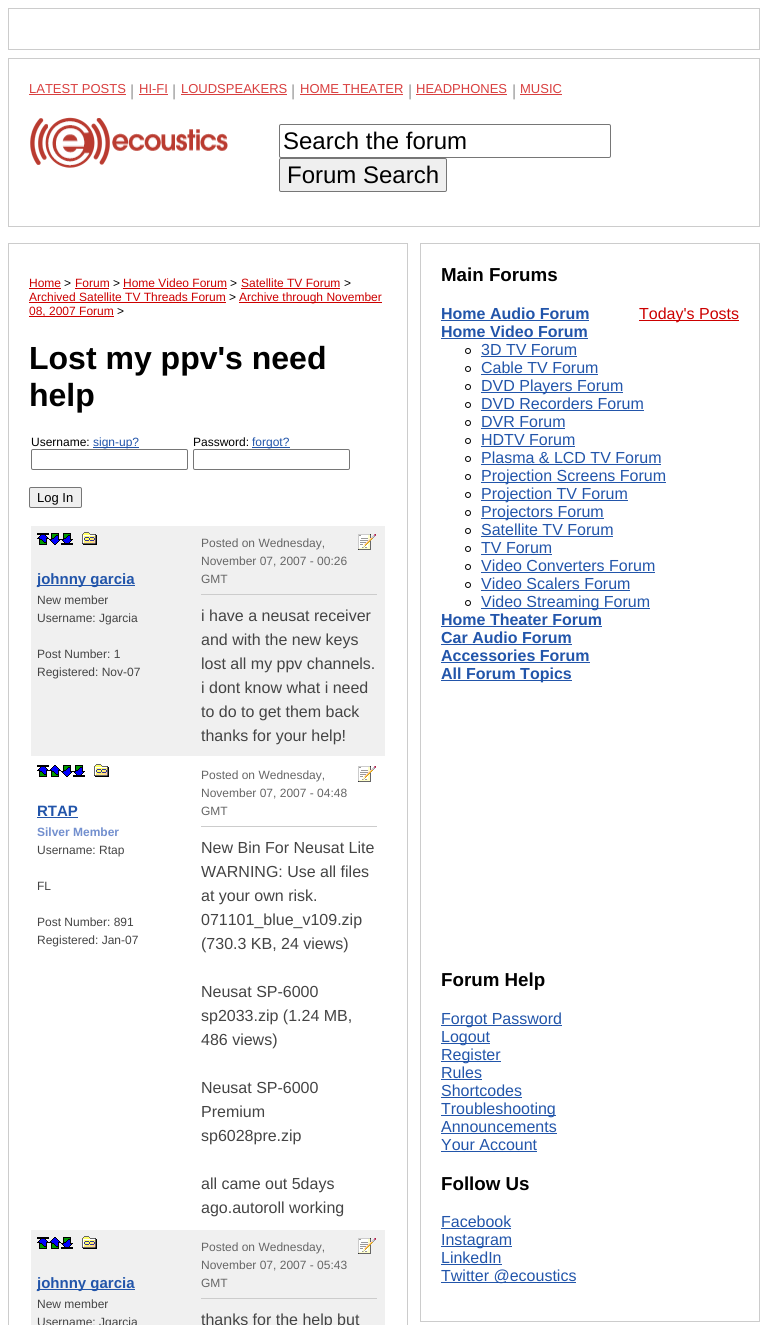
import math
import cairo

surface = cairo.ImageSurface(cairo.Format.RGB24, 768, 1325)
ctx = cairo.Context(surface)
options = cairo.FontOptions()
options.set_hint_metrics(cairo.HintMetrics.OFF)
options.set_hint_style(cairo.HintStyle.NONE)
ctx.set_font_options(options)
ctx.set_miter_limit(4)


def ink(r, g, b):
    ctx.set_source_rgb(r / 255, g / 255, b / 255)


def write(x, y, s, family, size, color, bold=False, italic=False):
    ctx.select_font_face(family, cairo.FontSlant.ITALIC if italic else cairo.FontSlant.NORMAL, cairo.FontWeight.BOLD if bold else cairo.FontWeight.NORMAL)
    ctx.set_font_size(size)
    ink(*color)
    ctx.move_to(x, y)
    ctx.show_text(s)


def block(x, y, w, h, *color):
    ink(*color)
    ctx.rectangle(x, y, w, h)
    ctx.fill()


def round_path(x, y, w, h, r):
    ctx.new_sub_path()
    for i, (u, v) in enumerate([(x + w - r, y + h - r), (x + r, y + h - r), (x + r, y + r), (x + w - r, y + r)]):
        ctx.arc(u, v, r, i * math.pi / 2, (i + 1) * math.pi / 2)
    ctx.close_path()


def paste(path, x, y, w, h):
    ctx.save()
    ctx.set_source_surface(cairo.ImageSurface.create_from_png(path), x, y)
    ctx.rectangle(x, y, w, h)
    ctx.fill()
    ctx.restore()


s1 = dict(family="Liberation Sans", size=13, color=(217, 64, 64))
s2 = dict(family="Liberation Sans", size=16, color=(153, 153, 153))
s3 = dict(family="Liberation Sans", size=24, color=(0, 0, 0))
s4 = dict(family="Liberation Sans", size=12, color=(204, 0, 0))
s5 = dict(family="Liberation Sans", size=12, color=(0, 0, 0))
s6 = dict(family="Liberation Sans", size=32, color=(0, 0, 0), bold=True)
s7 = dict(family="Liberation Sans", size=12, color=(34, 85, 170))
s8 = dict(family="Liberation Sans", size=13, color=(0, 0, 0))
s9 = dict(family="Liberation Sans", size=15, color=(34, 85, 170), bold=True)
s10 = dict(family="Liberation Sans", size=12, color=(68, 68, 68))
s11 = dict(family="Liberation Sans", size=12, color=(102, 102, 102))
s12 = dict(family="Liberation Sans", size=16, color=(68, 68, 68))
s13 = dict(family="Liberation Sans", size=12, color=(114, 143, 206), bold=True)
s14 = dict(family="Liberation Sans", size=18.75, color=(0, 0, 0), bold=True)
s15 = dict(family="Liberation Sans", size=16, color=(34, 85, 170), bold=True)
s16 = dict(family="Liberation Sans", size=16, color=(34, 85, 170))
s17 = dict(family="Liberation Sans", size=16, color=(204, 0, 0))

ink(255, 255, 255)
ctx.paint()
ctx.rectangle(8.5, 8.5, 751, 41)
ink(204, 204, 204)
ctx.set_line_width(1)
ctx.stroke()
ctx.rectangle(8.5, 58.5, 751, 168)
ctx.stroke()
write(29, 93, "LATEST POSTS", **s1)
block(29, 94, 97, 1, 217, 64, 64)
write(130, 96, "|", **s2)
write(139, 93, "HI-FI", **s1)
block(139, 94, 29, 1, 217, 64, 64)
write(172, 96, "|", **s2)
write(181, 93, "LOUDSPEAKERS", **s1)
block(181, 94, 106, 1, 217, 64, 64)
write(291, 96, "|", **s2)
write(300, 93, "HOME THEATER", **s1)
block(300, 94, 103, 1, 217, 64, 64)
write(408, 96, "|", **s2)
write(416, 93, "HEADPHONES", **s1)
block(416, 94, 91, 1, 217, 64, 64)
write(512, 96, "|", **s2)
write(520, 93, "MUSIC", **s1)
block(520, 94, 42, 1, 217, 64, 64)
paste("pic1.png", 30, 117, 198, 51)
round_path(279.5, 124.5, 331, 33, 1.5)
ink(118, 118, 118)
ctx.stroke()
write(283, 149, "Search the forum", **s3)
ink(239, 239, 239)
round_path(279.5, 158.5, 167, 33, 1.5)
ctx.fill_preserve()
ink(118, 118, 118)
ctx.stroke()
write(287, 183, "Forum Search", **s3)
ctx.rectangle(8.5, 243.5, 399, 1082)
ink(204, 204, 204)
ctx.stroke()
write(29, 287, "Home", **s4)
block(29, 288, 32, 1, 204, 0, 0)
write(64, 287, ">", **s5)
write(75, 287, "Forum", **s4)
block(75, 288, 34, 1, 204, 0, 0)
write(113, 287, ">", **s5)
write(123, 287, "Home Video Forum", **s4)
block(123, 288, 104, 1, 204, 0, 0)
write(230, 287, ">", **s5)
write(241, 287, "Satellite TV Forum", **s4)
block(241, 288, 99, 1, 204, 0, 0)
write(344, 287, ">", **s5)
write(29, 301, "Archived Satellite TV Threads Forum", **s4)
block(29, 302, 197, 1, 204, 0, 0)
write(229, 301, ">", **s5)
block(239, 302, 143, 1, 204, 0, 0)
write(239, 301, "Archive through November", **s4)
block(29, 316, 85, 1, 204, 0, 0)
write(29, 315, "08, 2007 Forum", **s4)
write(117, 315, ">", **s5)
write(29, 369, "Lost my ppv's need", **s6)
write(29, 406, "help", **s6)
write(31, 446, "Username:", **s5)
block(93, 447, 46, 1, 34, 85, 170)
write(93, 446, "sign-up?", **s7)
round_path(31.5, 449.5, 156, 20, 1.5)
ink(118, 118, 118)
ctx.stroke()
write(193, 446, "Password:", **s5)
block(252, 447, 38, 1, 34, 85, 170)
write(252, 446, "forgot?", **s7)
round_path(193.5, 449.5, 156, 20, 1.5)
ink(118, 118, 118)
ctx.stroke()
ink(239, 239, 239)
round_path(29.5, 487.5, 52, 20, 1.5)
ctx.fill_preserve()
ink(118, 118, 118)
ctx.stroke()
write(37, 502, "Log In", **s8)
block(31, 526, 354, 230, 240, 240, 240)
paste("pic2.png", 37, 533, 12, 12)
paste("pic3.png", 49, 533, 12, 12)
paste("pic4.png", 61, 533, 12, 12)
paste("pic5.png", 82, 532, 15, 13)
block(37, 585, 98, 1, 34, 85, 170)
write(37, 584, "johnny garcia", **s9)
write(37, 604, "New member", **s10)
write(37, 622, "Username: Jgarcia", **s10)
write(37, 658, "Post Number: 1", **s10)
write(37, 676, "Registered: Nov-07", **s10)
block(201, 594, 176, 1, 204, 204, 204)
write(201, 547, "Posted on Wednesday,", **s11)
paste("pic6.png", 358, 534, 18, 16)
write(201, 565, "November 07, 2007 - 00:26", **s11)
write(201, 583, "GMT", **s11)
write(201, 621, "i have a neusat receiver", **s12)
write(201, 645, "and with the new keys", **s12)
write(201, 669, "lost all my ppv channels.", **s12)
write(201, 693, "i dont know what i need", **s12)
write(201, 717, "to do to get them back", **s12)
write(201, 741, "thanks for your help!", **s12)
paste("pic7.png", 37, 765, 12, 12)
paste("pic8.png", 49, 765, 12, 12)
paste("pic9.png", 61, 765, 12, 12)
paste("pic10.png", 73, 765, 12, 12)
paste("pic11.png", 94, 764, 15, 13)
write(37, 816, "RTAP", **s9)
block(37, 817, 41, 1, 34, 85, 170)
write(37, 836, "Silver Member", **s13)
write(37, 854, "Username: Rtap", **s10)
write(37, 890, "FL", **s10)
write(37, 926, "Post Number: 891", **s10)
write(37, 944, "Registered: Jan-07", **s10)
block(201, 826, 176, 1, 204, 204, 204)
write(201, 779, "Posted on Wednesday,", **s11)
paste("pic12.png", 358, 766, 18, 16)
write(201, 797, "November 07, 2007 - 04:48", **s11)
write(201, 815, "GMT", **s11)
write(201, 853, "New Bin For Neusat Lite", **s12)
write(201, 877, "WARNING: Use all files", **s12)
write(201, 901, "at your own risk.", **s12)
write(201, 925, "071101_blue_v109.zip", **s12)
write(201, 949, "(730.3 KB, 24 views)", **s12)
write(201, 997, "Neusat SP-6000", **s12)
write(201, 1021, "sp2033.zip (1.24 MB,", **s12)
write(201, 1045, "486 views)", **s12)
write(201, 1093, "Neusat SP-6000", **s12)
write(201, 1117, "Premium", **s12)
write(201, 1141, "sp6028pre.zip", **s12)
write(201, 1189, "all came out 5days", **s12)
write(201, 1213, "ago.autoroll working", **s12)
block(31, 1230, 354, 95, 240, 240, 240)
paste("pic2.png", 37, 1237, 12, 12)
paste("pic13.png", 49, 1237, 12, 12)
paste("pic4.png", 61, 1237, 12, 12)
paste("pic5.png", 82, 1236, 15, 13)
block(37, 1289, 98, 1, 34, 85, 170)
write(37, 1288, "johnny garcia", **s9)
write(37, 1308, "New member", **s10)
write(37, 1326, "Username: Jgarcia", **s10)
block(201, 1298, 176, 1, 204, 204, 204)
write(201, 1251, "Posted on Wednesday,", **s11)
paste("pic6.png", 358, 1238, 18, 16)
write(201, 1269, "November 07, 2007 - 05:43", **s11)
write(201, 1287, "GMT", **s11)
write(201, 1325, "thanks for the help but", **s12)
ctx.rectangle(420.5, 243.5, 339, 1078)
ink(204, 204, 204)
ctx.stroke()
write(441, 281, "Main Forums", **s14)
write(441, 319, "Home Audio Forum", **s15)
block(441, 320, 148, 1, 34, 85, 170)
write(441, 337, "Home Video Forum", **s15)
block(441, 338, 147, 1, 34, 85, 170)
ctx.new_path()
ctx.arc(468, 351, 2.5, 0, 2 * math.pi)
ink(0, 0, 0)
ctx.stroke()
write(481, 355, "3D TV Forum", **s16)
block(481, 356, 96, 1, 34, 85, 170)
ctx.new_path()
ctx.arc(468, 369, 2.5, 0, 2 * math.pi)
ink(0, 0, 0)
ctx.stroke()
write(481, 373, "Cable TV Forum", **s16)
block(481, 374, 117, 1, 34, 85, 170)
ctx.new_path()
ctx.arc(468, 387, 2.5, 0, 2 * math.pi)
ink(0, 0, 0)
ctx.stroke()
block(481, 392, 142, 1, 34, 85, 170)
write(481, 391, "DVD Players Forum", **s16)
ctx.new_path()
ctx.arc(468, 405, 2.5, 0, 2 * math.pi)
ink(0, 0, 0)
ctx.stroke()
write(481, 409, "DVD Recorders Forum", **s16)
block(481, 410, 163, 1, 34, 85, 170)
ctx.new_path()
ctx.arc(468, 423, 2.5, 0, 2 * math.pi)
ink(0, 0, 0)
ctx.stroke()
write(481, 427, "DVR Forum", **s16)
block(481, 428, 84, 1, 34, 85, 170)
ctx.new_path()
ctx.arc(468, 441, 2.5, 0, 2 * math.pi)
ink(0, 0, 0)
ctx.stroke()
write(481, 445, "HDTV Forum", **s16)
block(481, 446, 94, 1, 34, 85, 170)
ctx.new_path()
ctx.arc(468, 459, 2.5, 0, 2 * math.pi)
ink(0, 0, 0)
ctx.stroke()
write(481, 463, "Plasma & LCD TV Forum", **s16)
block(481, 464, 180, 1, 34, 85, 170)
ctx.new_path()
ctx.arc(468, 477, 2.5, 0, 2 * math.pi)
ink(0, 0, 0)
ctx.stroke()
block(481, 482, 185, 1, 34, 85, 170)
write(481, 481, "Projection Screens Forum", **s16)
ctx.new_path()
ctx.arc(468, 495, 2.5, 0, 2 * math.pi)
ink(0, 0, 0)
ctx.stroke()
block(481, 500, 147, 1, 34, 85, 170)
write(481, 499, "Projection TV Forum", **s16)
ctx.new_path()
ctx.arc(468, 513, 2.5, 0, 2 * math.pi)
ink(0, 0, 0)
ctx.stroke()
block(481, 518, 123, 1, 34, 85, 170)
write(481, 517, "Projectors Forum", **s16)
ctx.new_path()
ctx.arc(468, 531, 2.5, 0, 2 * math.pi)
ink(0, 0, 0)
ctx.stroke()
write(481, 535, "Satellite TV Forum", **s16)
block(481, 536, 132, 1, 34, 85, 170)
ctx.new_path()
ctx.arc(468, 549, 2.5, 0, 2 * math.pi)
ink(0, 0, 0)
ctx.stroke()
write(481, 553, "TV Forum", **s16)
block(481, 554, 71, 1, 34, 85, 170)
ctx.new_path()
ctx.arc(468, 567, 2.5, 0, 2 * math.pi)
ink(0, 0, 0)
ctx.stroke()
write(481, 571, "Video Converters Forum", **s16)
block(481, 572, 174, 1, 34, 85, 170)
ctx.new_path()
ctx.arc(468, 585, 2.5, 0, 2 * math.pi)
ink(0, 0, 0)
ctx.stroke()
write(481, 589, "Video Scalers Forum", **s16)
block(481, 590, 149, 1, 34, 85, 170)
ctx.new_path()
ctx.arc(468, 603, 2.5, 0, 2 * math.pi)
ink(0, 0, 0)
ctx.stroke()
block(481, 608, 169, 1, 34, 85, 170)
write(481, 607, "Video Streaming Forum", **s16)
write(441, 625, "Home Theater Forum", **s15)
block(441, 626, 161, 1, 34, 85, 170)
write(441, 643, "Car Audio Forum", **s15)
block(441, 644, 131, 1, 34, 85, 170)
write(441, 661, "Accessories Forum", **s15)
block(441, 662, 149, 1, 34, 85, 170)
block(441, 680, 131, 1, 34, 85, 170)
write(441, 679, "All Forum Topics", **s15)
block(639, 320, 100, 1, 204, 0, 0)
write(639, 319, "Today's Posts", **s17)
write(441, 986, "Forum Help", **s14)
block(441, 1025, 121, 1, 34, 85, 170)
write(441, 1024, "Forgot Password", **s16)
block(441, 1043, 49, 1, 34, 85, 170)
write(441, 1042, "Logout", **s16)
block(441, 1061, 60, 1, 34, 85, 170)
write(441, 1060, "Register", **s16)
write(441, 1078, "Rules", **s16)
block(441, 1079, 41, 1, 34, 85, 170)
write(441, 1096, "Shortcodes", **s16)
block(441, 1097, 81, 1, 34, 85, 170)
block(441, 1115, 115, 1, 34, 85, 170)
write(441, 1114, "Troubleshooting", **s16)
write(441, 1132, "Announcements", **s16)
block(441, 1133, 116, 1, 34, 85, 170)
write(441, 1150, "Your Account", **s16)
block(441, 1151, 96, 1, 34, 85, 170)
write(441, 1190, "Follow Us", **s14)
write(441, 1227, "Facebook", **s16)
block(441, 1228, 70, 1, 34, 85, 170)
block(441, 1246, 71, 1, 34, 85, 170)
write(441, 1245, "Instagram", **s16)
write(441, 1263, "LinkedIn", **s16)
block(441, 1264, 61, 1, 34, 85, 170)
block(441, 1282, 135, 1, 34, 85, 170)
write(441, 1281, "Twitter @ecoustics", **s16)
surface.write_to_png("screenshot.png")
